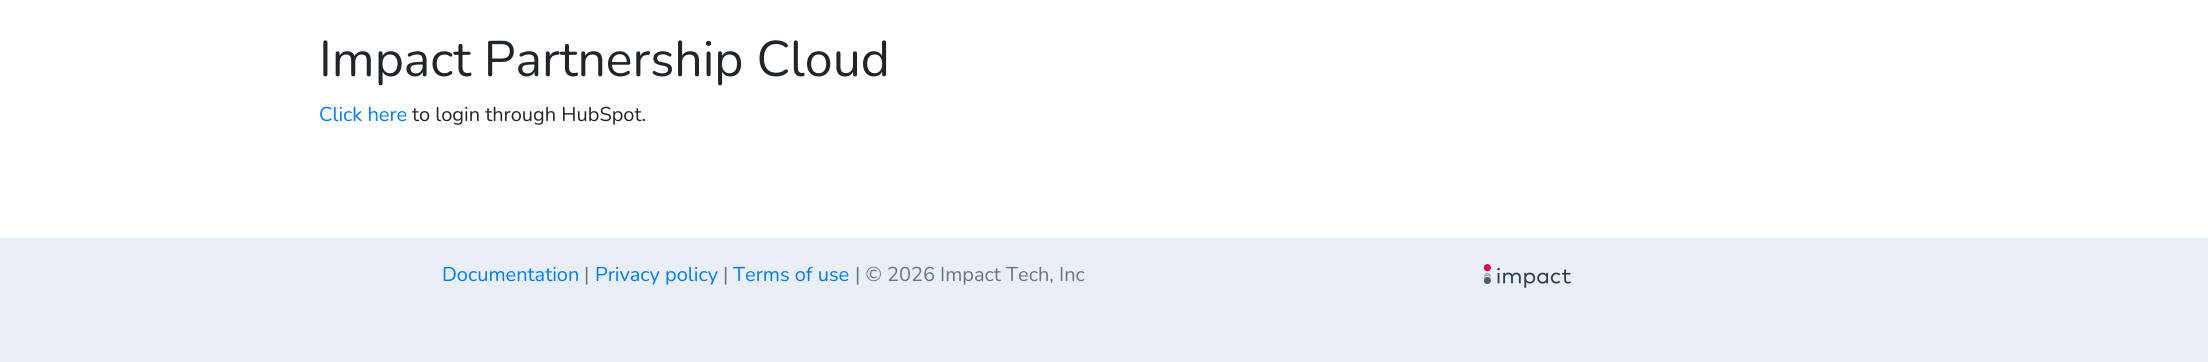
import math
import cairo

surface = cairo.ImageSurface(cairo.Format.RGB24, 2208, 362)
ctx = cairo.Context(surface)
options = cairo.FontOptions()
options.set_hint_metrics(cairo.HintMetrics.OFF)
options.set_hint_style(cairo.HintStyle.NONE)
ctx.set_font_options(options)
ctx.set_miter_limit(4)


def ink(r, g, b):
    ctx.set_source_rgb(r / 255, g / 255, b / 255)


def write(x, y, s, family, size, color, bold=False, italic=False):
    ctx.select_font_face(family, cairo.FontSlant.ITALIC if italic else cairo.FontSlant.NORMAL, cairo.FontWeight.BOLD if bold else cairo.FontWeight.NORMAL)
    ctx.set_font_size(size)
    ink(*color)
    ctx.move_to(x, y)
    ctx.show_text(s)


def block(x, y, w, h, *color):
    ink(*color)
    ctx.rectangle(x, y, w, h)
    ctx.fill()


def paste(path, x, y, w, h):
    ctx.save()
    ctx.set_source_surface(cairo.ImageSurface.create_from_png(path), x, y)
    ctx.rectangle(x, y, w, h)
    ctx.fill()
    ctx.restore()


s1 = dict(family="Nunito", size=50, color=(33, 37, 41))
s2 = dict(family="Nunito", size=20, color=(0, 123, 255))
s3 = dict(family="Nunito", size=20, color=(33, 37, 41))
s4 = dict(family="Nunito", size=20, color=(108, 117, 125))

ink(255, 255, 255)
ctx.paint()
write(319, 76, "Impact Partnership Cloud", **s1)
write(319, 121, "Click here", **s2)
write(412, 121, "to login through HubSpot.", **s3)
block(0, 238, 2208, 124, 234, 238, 248)
write(442, 281, "Documentation", **s2)
write(584, 281, "|", **s4)
write(595, 281, "Privacy policy", **s2)
write(723, 281, "|", **s4)
write(733, 281, "Terms of use", **s2)
write(855, 281, "| © 2026 Impact Tech, Inc", **s4)
paste("pic1.png", 1484, 264, 87, 24)
surface.write_to_png("screenshot.png")
